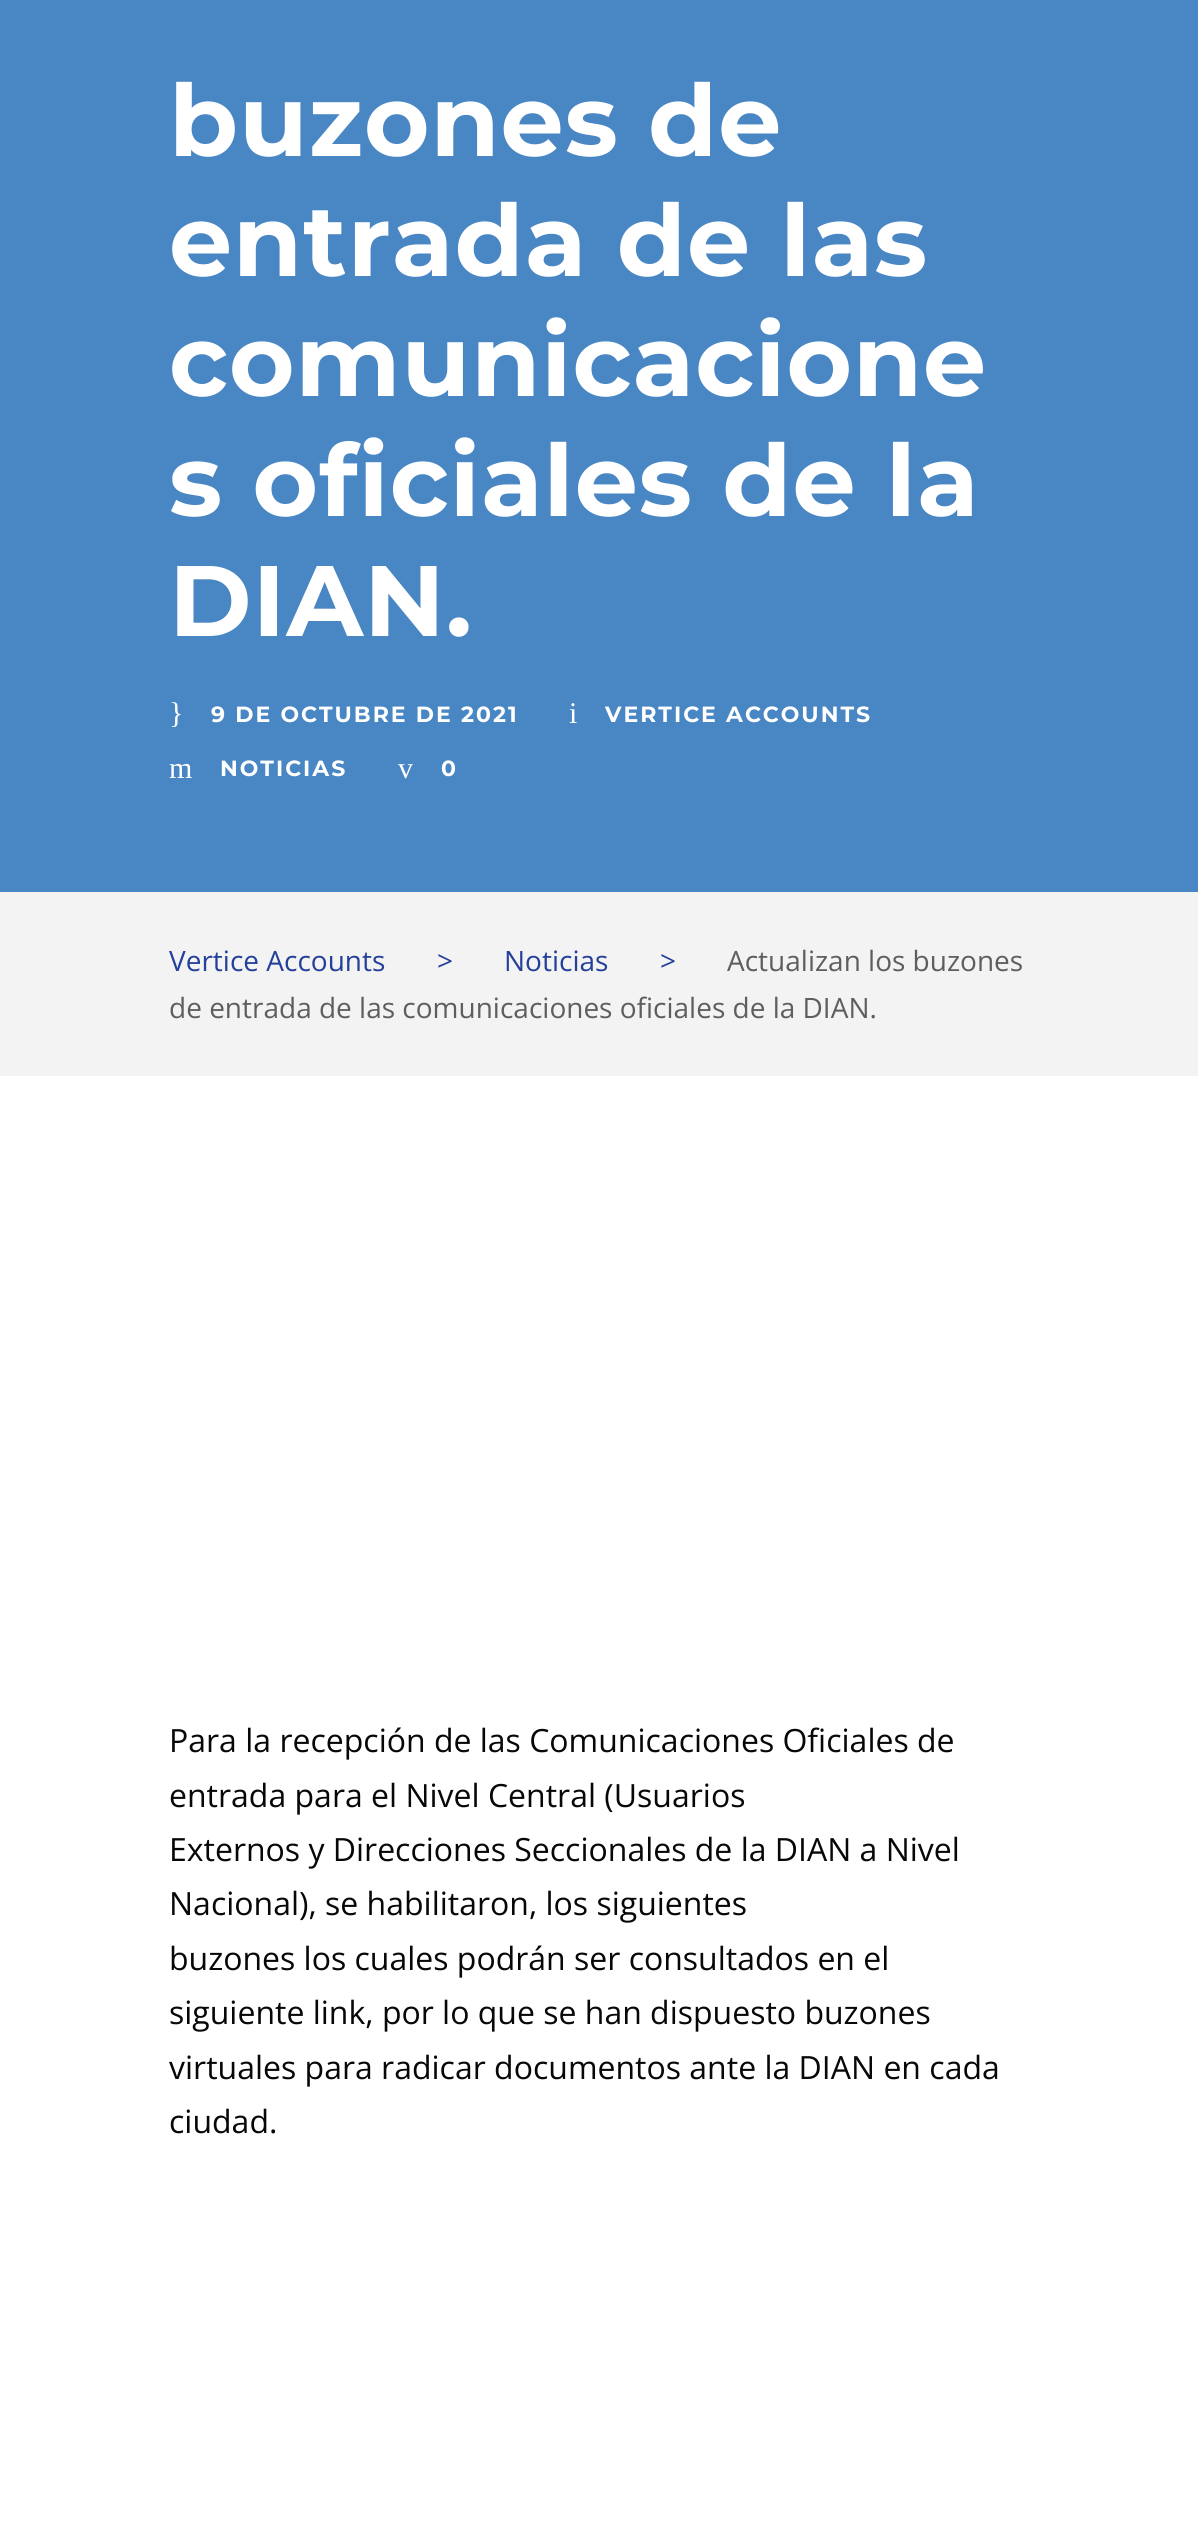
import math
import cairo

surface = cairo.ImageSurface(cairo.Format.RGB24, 1198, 2545)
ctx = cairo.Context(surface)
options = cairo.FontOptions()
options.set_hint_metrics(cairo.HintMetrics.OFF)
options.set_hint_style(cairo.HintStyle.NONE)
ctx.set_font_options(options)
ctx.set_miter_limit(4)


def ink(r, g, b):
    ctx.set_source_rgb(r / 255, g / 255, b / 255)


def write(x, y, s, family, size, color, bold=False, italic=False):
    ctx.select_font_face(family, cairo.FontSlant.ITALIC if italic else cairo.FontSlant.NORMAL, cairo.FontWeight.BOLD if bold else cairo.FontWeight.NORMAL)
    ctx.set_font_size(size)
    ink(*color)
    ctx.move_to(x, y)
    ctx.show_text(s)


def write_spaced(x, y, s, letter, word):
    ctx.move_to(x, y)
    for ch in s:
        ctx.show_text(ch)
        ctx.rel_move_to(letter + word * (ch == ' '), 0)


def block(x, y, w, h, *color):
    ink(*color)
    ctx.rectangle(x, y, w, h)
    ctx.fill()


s1 = dict(family="Open Sans", size=28, color=(37, 64, 153))
s2 = dict(family="Open Sans", size=28, color=(94, 94, 94))
s3 = dict(family="Open Sans", size=32, color=(7, 7, 7))

ink(255, 255, 255)
ctx.paint()
block(0, 0, 1198, 892, 73, 134, 196)
ctx.select_font_face("Montserrat", cairo.FontSlant.NORMAL, cairo.FontWeight.BOLD)
ctx.set_font_size(100)
ink(255, 255, 255)
write_spaced(169, 156, "buzones de", 1, 0)
write_spaced(169, 276, "entrada de las", 1, 0)
write_spaced(169, 396, "comunicacione", 1, 0)
write_spaced(169, 516, "s oficiales de la", 1, 0)
write_spaced(169, 636, "DIAN.", 1, 0)
ctx.select_font_face("Liberation Serif")
ctx.set_font_size(30)
write_spaced(169, 723, "}", 2, 0)
ctx.select_font_face("Montserrat", cairo.FontSlant.NORMAL, cairo.FontWeight.BOLD)
ctx.set_font_size(22)
write_spaced(211, 722, "9 DE OCTUBRE DE 2021", 2, 0)
ctx.select_font_face("Liberation Serif")
ctx.set_font_size(30)
write_spaced(569, 723, "i", 2, 0)
ctx.select_font_face("Montserrat", cairo.FontSlant.NORMAL, cairo.FontWeight.BOLD)
ctx.set_font_size(22)
write_spaced(605, 722, "VERTICE ACCOUNTS", 2, 0)
ctx.select_font_face("Liberation Serif")
ctx.set_font_size(30)
write_spaced(169, 778, "m", 2, 0)
ctx.select_font_face("Montserrat", cairo.FontSlant.NORMAL, cairo.FontWeight.BOLD)
ctx.set_font_size(22)
write_spaced(220, 776, "NOTICIAS", 2, 0)
ctx.select_font_face("Liberation Serif")
ctx.set_font_size(30)
write_spaced(398, 778, "v", 2, 0)
ctx.select_font_face("Montserrat", cairo.FontSlant.NORMAL, cairo.FontWeight.BOLD)
ctx.set_font_size(22)
write_spaced(441, 776, "0", 2, 0)
block(0, 892, 1198, 184, 243, 243, 243)
write(169, 971, "Vertice Accounts", **s1)
write(437, 971, ">", **s1)
write(504, 971, "Noticias", **s1)
write(660, 971, ">", **s1)
write(727, 971, "Actualizan los buzones", **s2)
write(169, 1018, "de entrada de las comunicaciones oficiales de la DIAN.", **s2)
write(169, 1752, "Para la recepción de las Comunicaciones Oficiales de", **s3)
write(169, 1807, "entrada para el Nivel Central (Usuarios", **s3)
write(169, 1861, "Externos y Direcciones Seccionales de la DIAN a Nivel", **s3)
write(169, 1915, "Nacional), se habilitaron, los siguientes", **s3)
write(169, 1970, "buzones los cuales podrán ser consultados en el", **s3)
write(169, 2024, "siguiente link, por lo que se han dispuesto buzones", **s3)
write(169, 2079, "virtuales para radicar documentos ante la DIAN en cada", **s3)
write(169, 2133, "ciudad.", **s3)
surface.write_to_png("screenshot.png")
